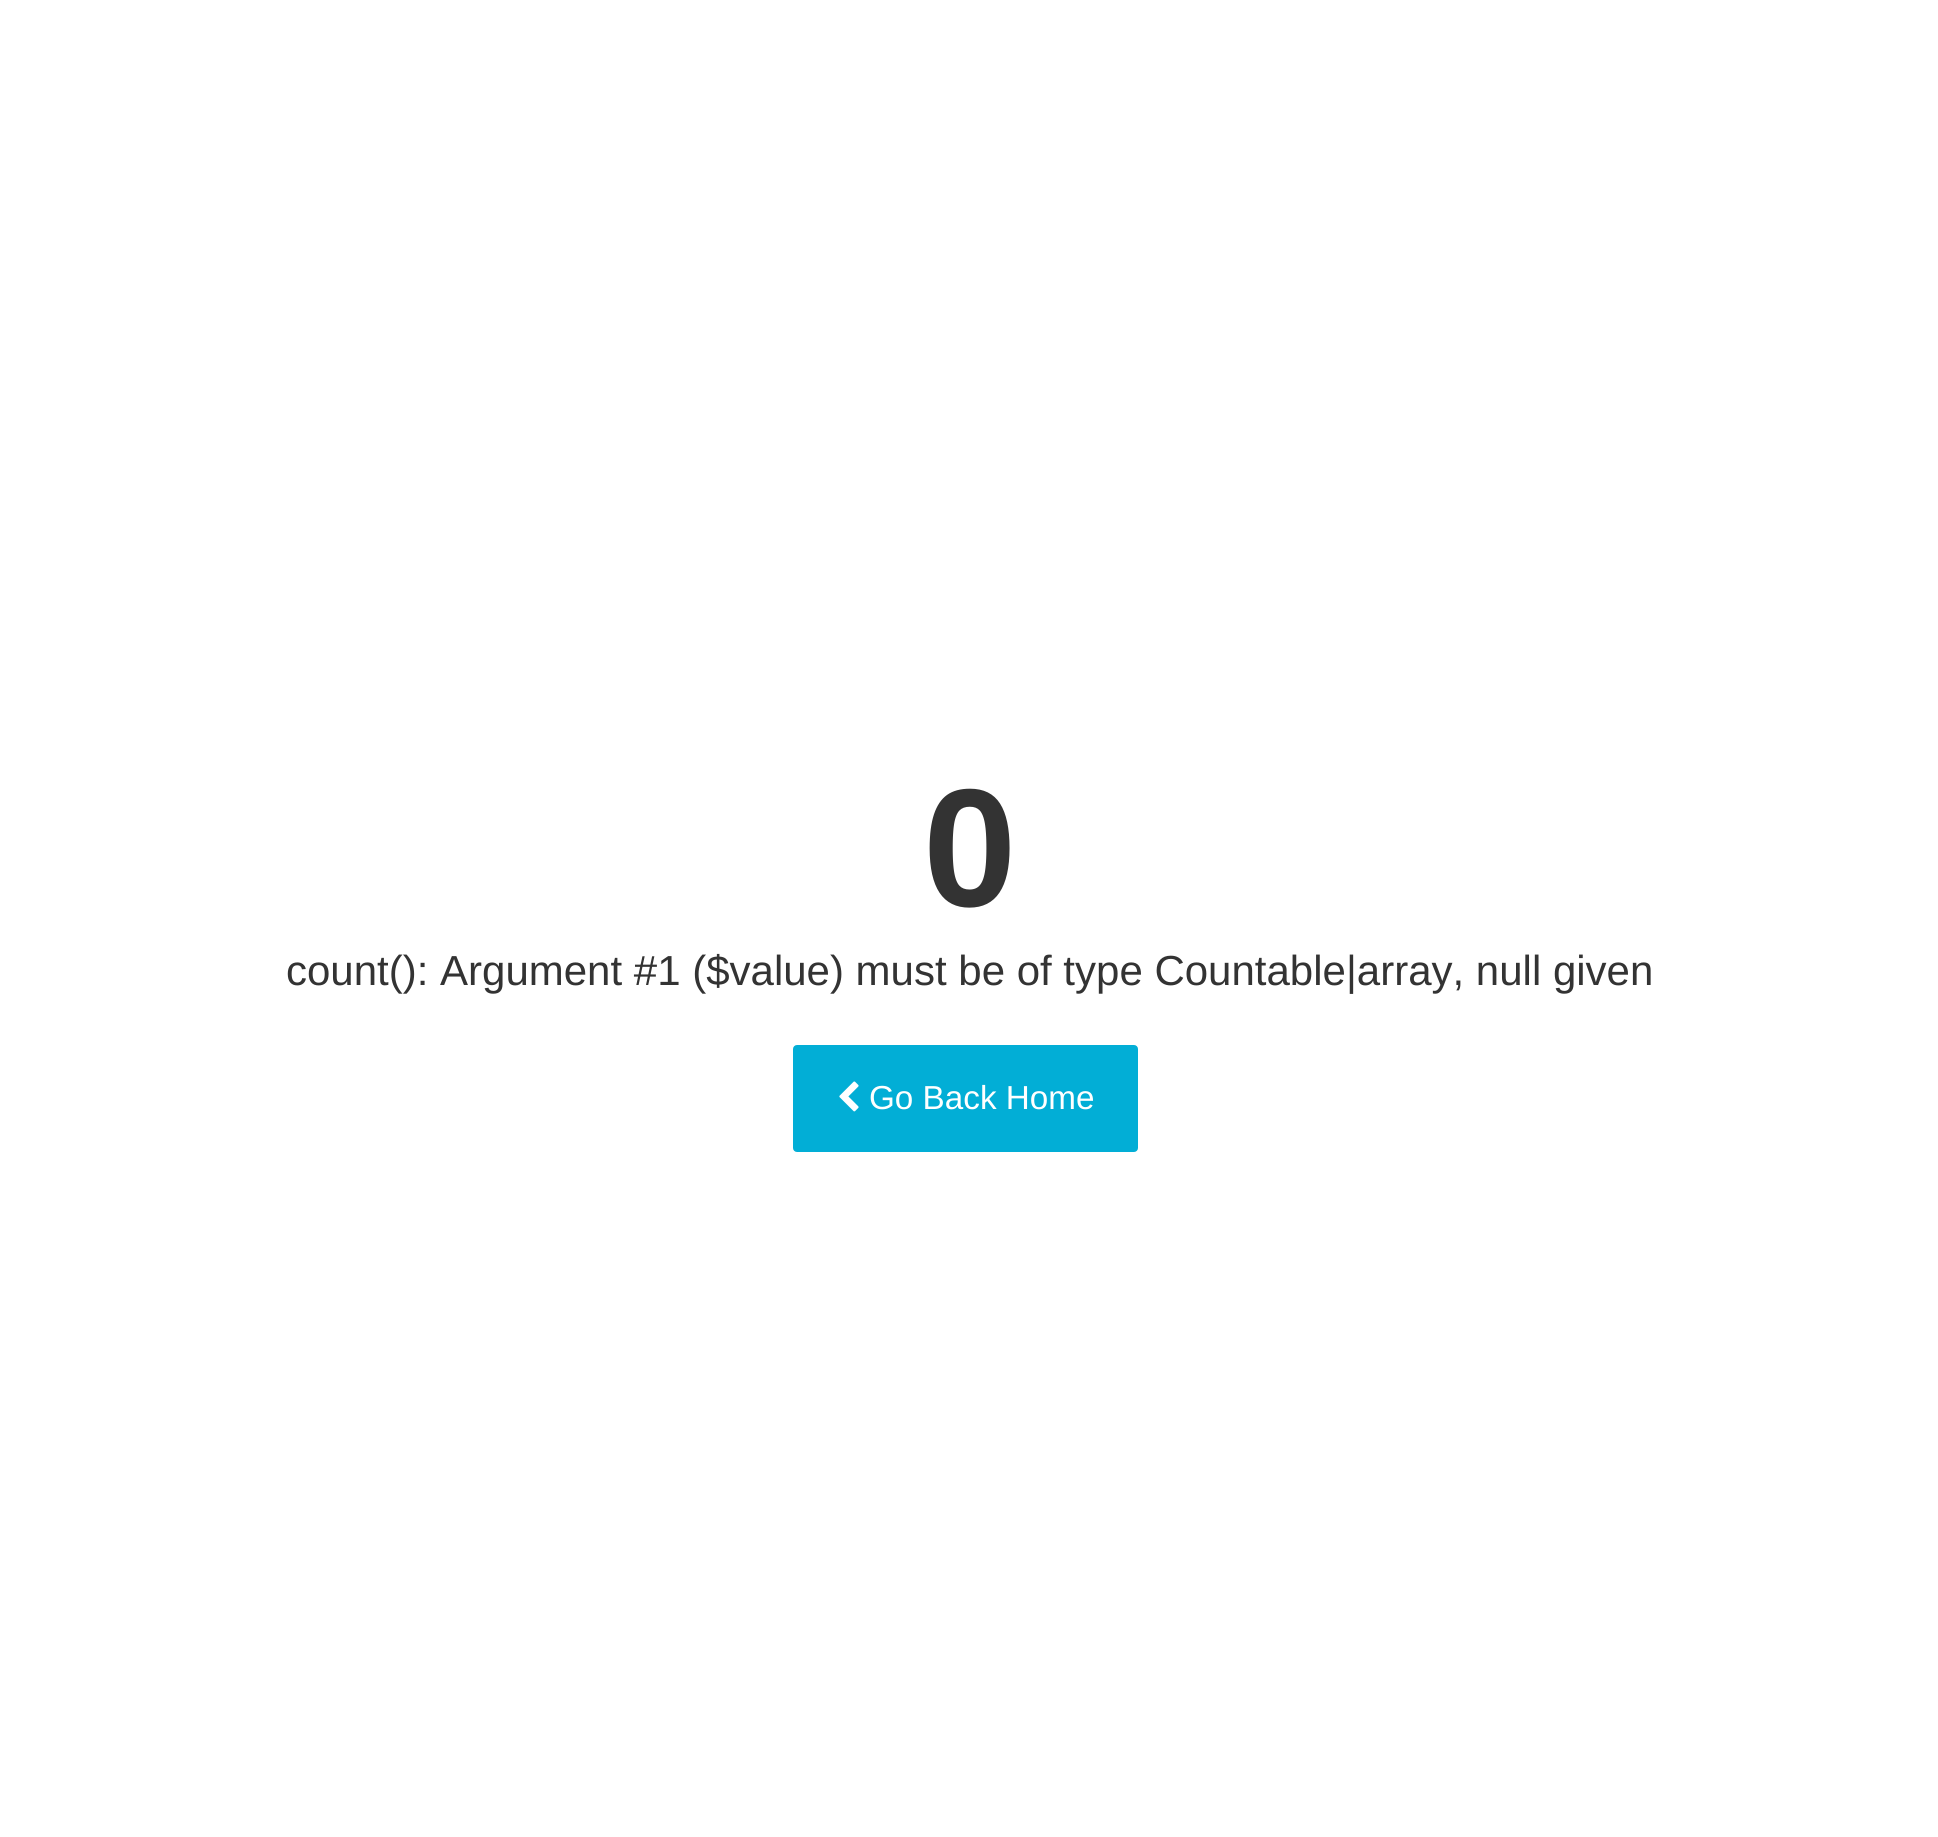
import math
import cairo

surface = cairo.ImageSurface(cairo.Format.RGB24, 1938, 1837)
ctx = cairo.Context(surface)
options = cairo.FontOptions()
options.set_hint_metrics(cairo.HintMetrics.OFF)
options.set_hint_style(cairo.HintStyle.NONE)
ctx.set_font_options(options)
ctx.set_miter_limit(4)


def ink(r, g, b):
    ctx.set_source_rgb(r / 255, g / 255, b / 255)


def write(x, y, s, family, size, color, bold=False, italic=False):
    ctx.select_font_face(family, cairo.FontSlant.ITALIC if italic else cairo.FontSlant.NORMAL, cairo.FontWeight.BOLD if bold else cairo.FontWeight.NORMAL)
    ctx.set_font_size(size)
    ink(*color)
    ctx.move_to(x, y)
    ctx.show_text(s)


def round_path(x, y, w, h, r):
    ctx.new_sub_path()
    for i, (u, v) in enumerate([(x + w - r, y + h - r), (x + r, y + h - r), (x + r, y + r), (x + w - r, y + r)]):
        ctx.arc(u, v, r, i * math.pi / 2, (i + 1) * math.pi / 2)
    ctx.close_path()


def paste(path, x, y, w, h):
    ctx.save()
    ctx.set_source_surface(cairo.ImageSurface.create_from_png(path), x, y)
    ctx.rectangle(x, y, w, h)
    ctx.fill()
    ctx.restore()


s1 = dict(family="Liberation Sans", size=168, color=(51, 51, 51), bold=True)
s2 = dict(family="Liberation Sans", size=42, color=(51, 51, 51))
s3 = dict(family="Liberation Sans", size=33.25, color=(255, 255, 255))

ink(255, 255, 255)
ctx.paint()
write(923, 906, "0", **s1)
write(286, 985, "count(): Argument #1 ($value) must be of type Countable|array, null given", **s2)
ink(2, 174, 214)
round_path(794, 1046, 343, 105, 3)
ctx.fill_preserve()
ctx.stroke()
paste("pic1.png", 839, 1081, 20, 31)
write(869, 1109, "Go Back Home", **s3)
surface.write_to_png("screenshot.png")
